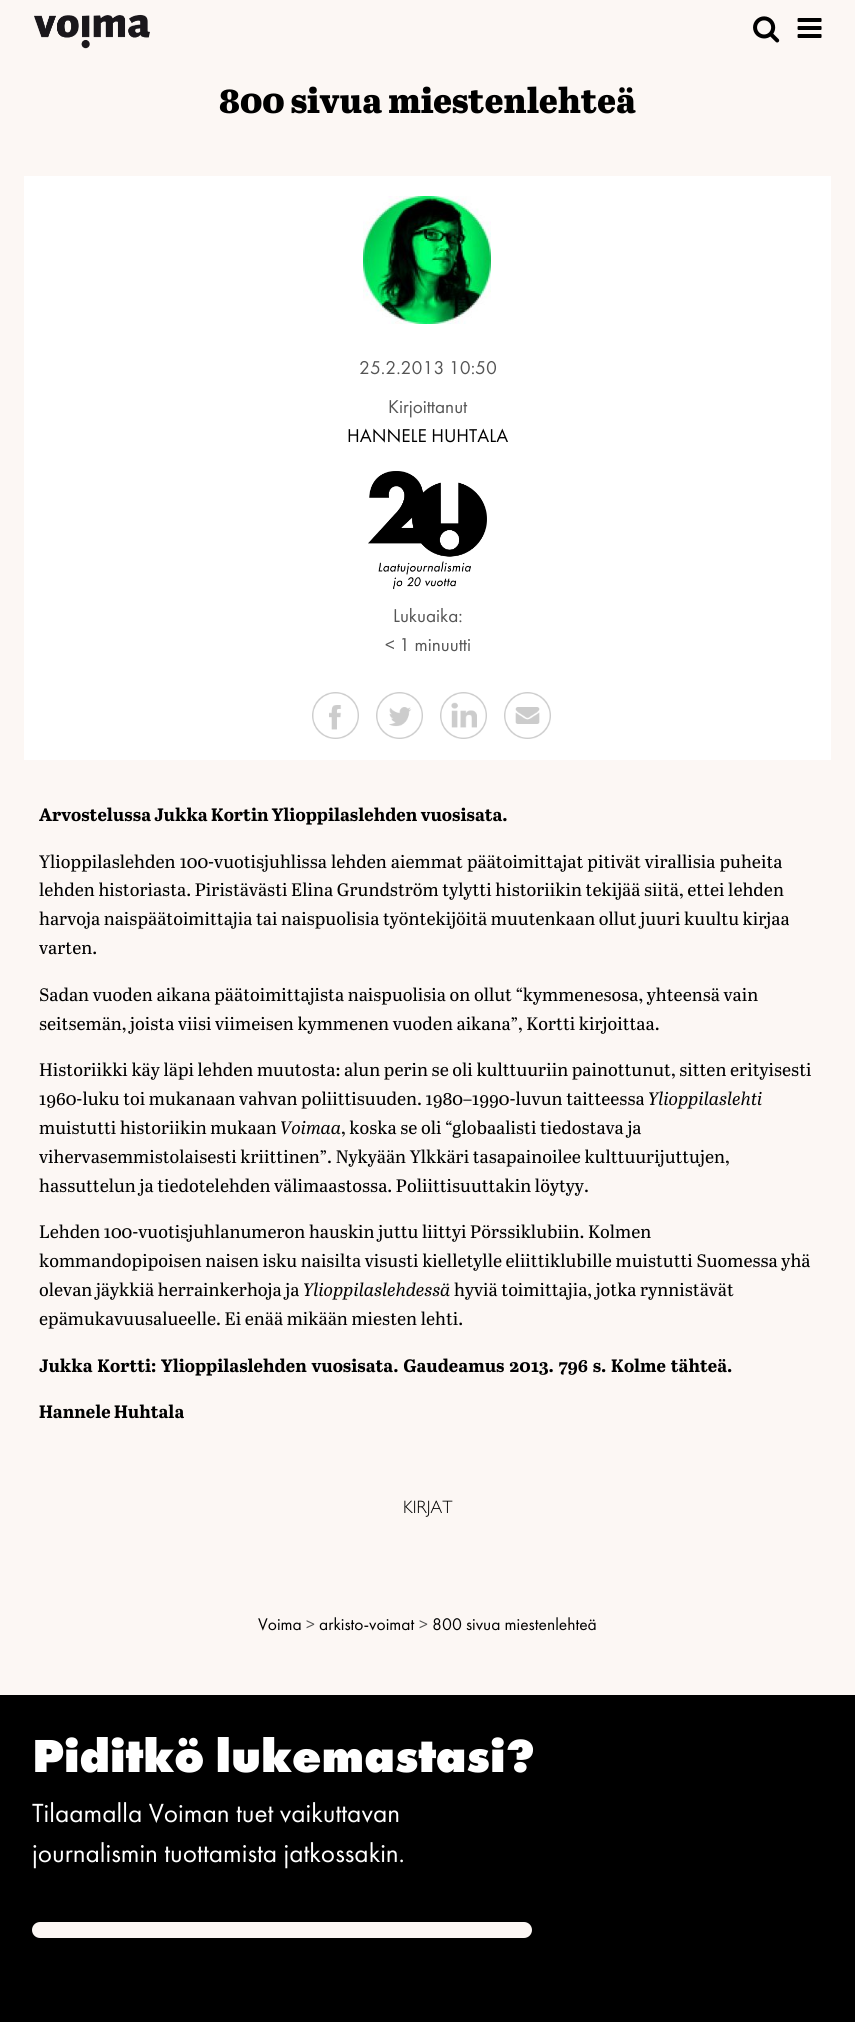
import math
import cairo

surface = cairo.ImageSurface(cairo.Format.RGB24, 855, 2022)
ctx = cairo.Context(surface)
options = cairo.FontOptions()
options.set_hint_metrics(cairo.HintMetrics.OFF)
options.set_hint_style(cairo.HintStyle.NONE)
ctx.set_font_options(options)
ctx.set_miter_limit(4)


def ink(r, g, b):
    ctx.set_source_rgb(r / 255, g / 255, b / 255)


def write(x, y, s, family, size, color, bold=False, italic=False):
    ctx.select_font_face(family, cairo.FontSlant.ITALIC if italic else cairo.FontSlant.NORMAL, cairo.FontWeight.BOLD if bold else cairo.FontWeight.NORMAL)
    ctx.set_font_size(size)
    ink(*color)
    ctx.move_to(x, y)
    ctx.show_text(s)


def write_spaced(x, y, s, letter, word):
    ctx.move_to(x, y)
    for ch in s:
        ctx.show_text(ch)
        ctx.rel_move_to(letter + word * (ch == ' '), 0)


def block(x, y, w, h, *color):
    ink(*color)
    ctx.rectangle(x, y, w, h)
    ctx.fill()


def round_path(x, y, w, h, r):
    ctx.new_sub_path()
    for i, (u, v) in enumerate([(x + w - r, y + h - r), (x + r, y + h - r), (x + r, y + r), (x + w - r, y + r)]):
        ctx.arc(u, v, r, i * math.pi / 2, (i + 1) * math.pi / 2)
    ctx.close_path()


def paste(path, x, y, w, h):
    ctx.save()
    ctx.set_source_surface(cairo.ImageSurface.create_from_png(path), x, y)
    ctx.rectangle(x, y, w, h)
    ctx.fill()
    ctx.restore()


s1 = dict(family="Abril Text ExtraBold", size=35.25, color=(0, 0, 0))
s2 = dict(family="Futura PT", size=19.25, color=(85, 85, 85))
s3 = dict(family="Futura PT", size=19.25, color=(0, 0, 0))
s4 = dict(family="Abril Text", size=18, color=(0, 0, 0), bold=True)
s5 = dict(family="Abril Text", size=18, color=(0, 0, 0))
s6 = dict(family="Abril Text", size=18, color=(0, 0, 0), italic=True)
s7 = dict(family="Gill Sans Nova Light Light", size=18, color=(0, 0, 0))
s8 = dict(family="Futura PT", size=17.5, color=(0, 0, 0))
s9 = dict(family="Futura PT", size=17.5, color=(85, 85, 85))
s10 = dict(family="Futura PT ExtraBold", size=48, color=(255, 255, 255))
s11 = dict(family="Futura PT", size=27.25, color=(255, 255, 255))

ink(252, 247, 244)
ctx.paint()
paste("pic1.png", 34, 14, 116, 35)
paste("pic2.png", 753, 16, 27, 27)
paste("pic3.png", 797, 18, 25, 20)
write(219, 113, "800 sivua miestenlehteä", **s1)
block(24, 176, 807, 584, 255, 255, 255)
paste("pic4.png", 363, 196, 128, 128)
write(359, 374, "25.2.2013 10:50", **s2)
write(388, 413, "Kirjoittanut", **s2)
write(347, 442, "HANNELE HUHTALA", **s3)
paste("pic5.png", 368, 471, 119, 118)
paste("pic6.png", 312, 692, 47, 47)
paste("pic7.png", 376, 692, 47, 47)
paste("pic8.png", 440, 692, 47, 47)
paste("pic9.png", 504, 692, 47, 47)
write(393, 622, "Lukuaika:", **s2)
write(385, 651, "< 1 minuutti", **s2)
write(39, 821, "Arvostelussa Jukka Kortin Ylioppilaslehden vuosisata.", **s4)
ctx.select_font_face("Abril Text")
write_spaced(39, 868, "Ylioppilaslehden 100-vuotisjuhlissa lehden aiemmat päätoimittajat pitivät virallisia puheita", 0, 0.5)
write(39, 896, "lehden historiasta. Piristävästi Elina Grundström tylytti historiikin tekijää siitä, ettei lehden", **s5)
write(39, 925, "harvoja naispäätoimittajia tai naispuolisia työntekijöitä muutenkaan ollut juuri kuultu kirjaa", **s5)
write(39, 954, "varten.", **s5)
write(39, 1001, "Sadan vuoden aikana päätoimittajista naispuolisia on ollut “kymmenesosa, yhteensä vain", **s5)
write(39, 1030, "seitsemän, joista viisi viimeisen kymmenen vuoden aikana”, Kortti kirjoittaa.", **s5)
write(39, 1076, "Historiikki käy läpi lehden muutosta: alun perin se oli kulttuuriin painottunut, sitten erityisesti", **s5)
write(39, 1105, "1960-luku toi mukanaan vahvan poliittisuuden. 1980–1990-luvun taitteessa", **s5)
write(648, 1105, "Ylioppilaslehti", **s6)
write(39, 1134, "muistutti historiikin mukaan", **s5)
write(280, 1134, "Voimaa", **s6)
write(341, 1134, ", koska se oli “globaalisti tiedostava ja", **s5)
write(39, 1163, "vihervasemmistolaisesti kriittinen”. Nykyään Ylkkäri tasapainoilee kulttuurijuttujen,", **s5)
write(39, 1192, "hassuttelun ja tiedotelehden välimaastossa. Poliittisuuttakin löytyy.", **s5)
write(39, 1238, "Lehden 100-vuotisjuhlanumeron hauskin juttu liittyi Pörssiklubiin. Kolmen", **s5)
write(39, 1267, "kommandopipoisen naisen isku naisilta visusti kielletylle eliittiklubille muistutti Suomessa yhä", **s5)
write(39, 1296, "olevan jäykkiä herrainkerhoja ja", **s5)
write(303, 1296, "Ylioppilaslehdessä", **s6)
write(454, 1296, "hyviä toimittajia, jotka rynnistävät", **s5)
write(39, 1325, "epämukavuusalueelle. Ei enää mikään miesten lehti.", **s5)
ctx.select_font_face("Abril Text", cairo.FontSlant.NORMAL, cairo.FontWeight.BOLD)
write_spaced(39, 1372, "Jukka Kortti: Ylioppilaslehden vuosisata. Gaudeamus 2013. 796 s. Kolme tähteä.", 0, 1.5)
write(39, 1418, "Hannele Huhtala", **s4)
write(403, 1513, "KIRJAT", **s7)
write(258, 1630, "Voima", **s8)
write(306, 1630, ">", **s9)
write(319, 1630, "arkisto-voimat", **s8)
write(419, 1630, ">", **s9)
write(432, 1630, "800 sivua miestenlehteä", **s8)
block(0, 1695, 855, 327, 0, 0, 0)
write(32, 1772, "Piditkö lukemastasi?", **s10)
write(32, 1822, "Tilaamalla Voiman tuet vaikuttavan", **s11)
write(32, 1862, "journalismin tuottamista jatkossakin.", **s11)
ink(252, 247, 244)
round_path(32, 1922, 500, 16, 8)
ctx.fill()
surface.write_to_png("screenshot.png")
